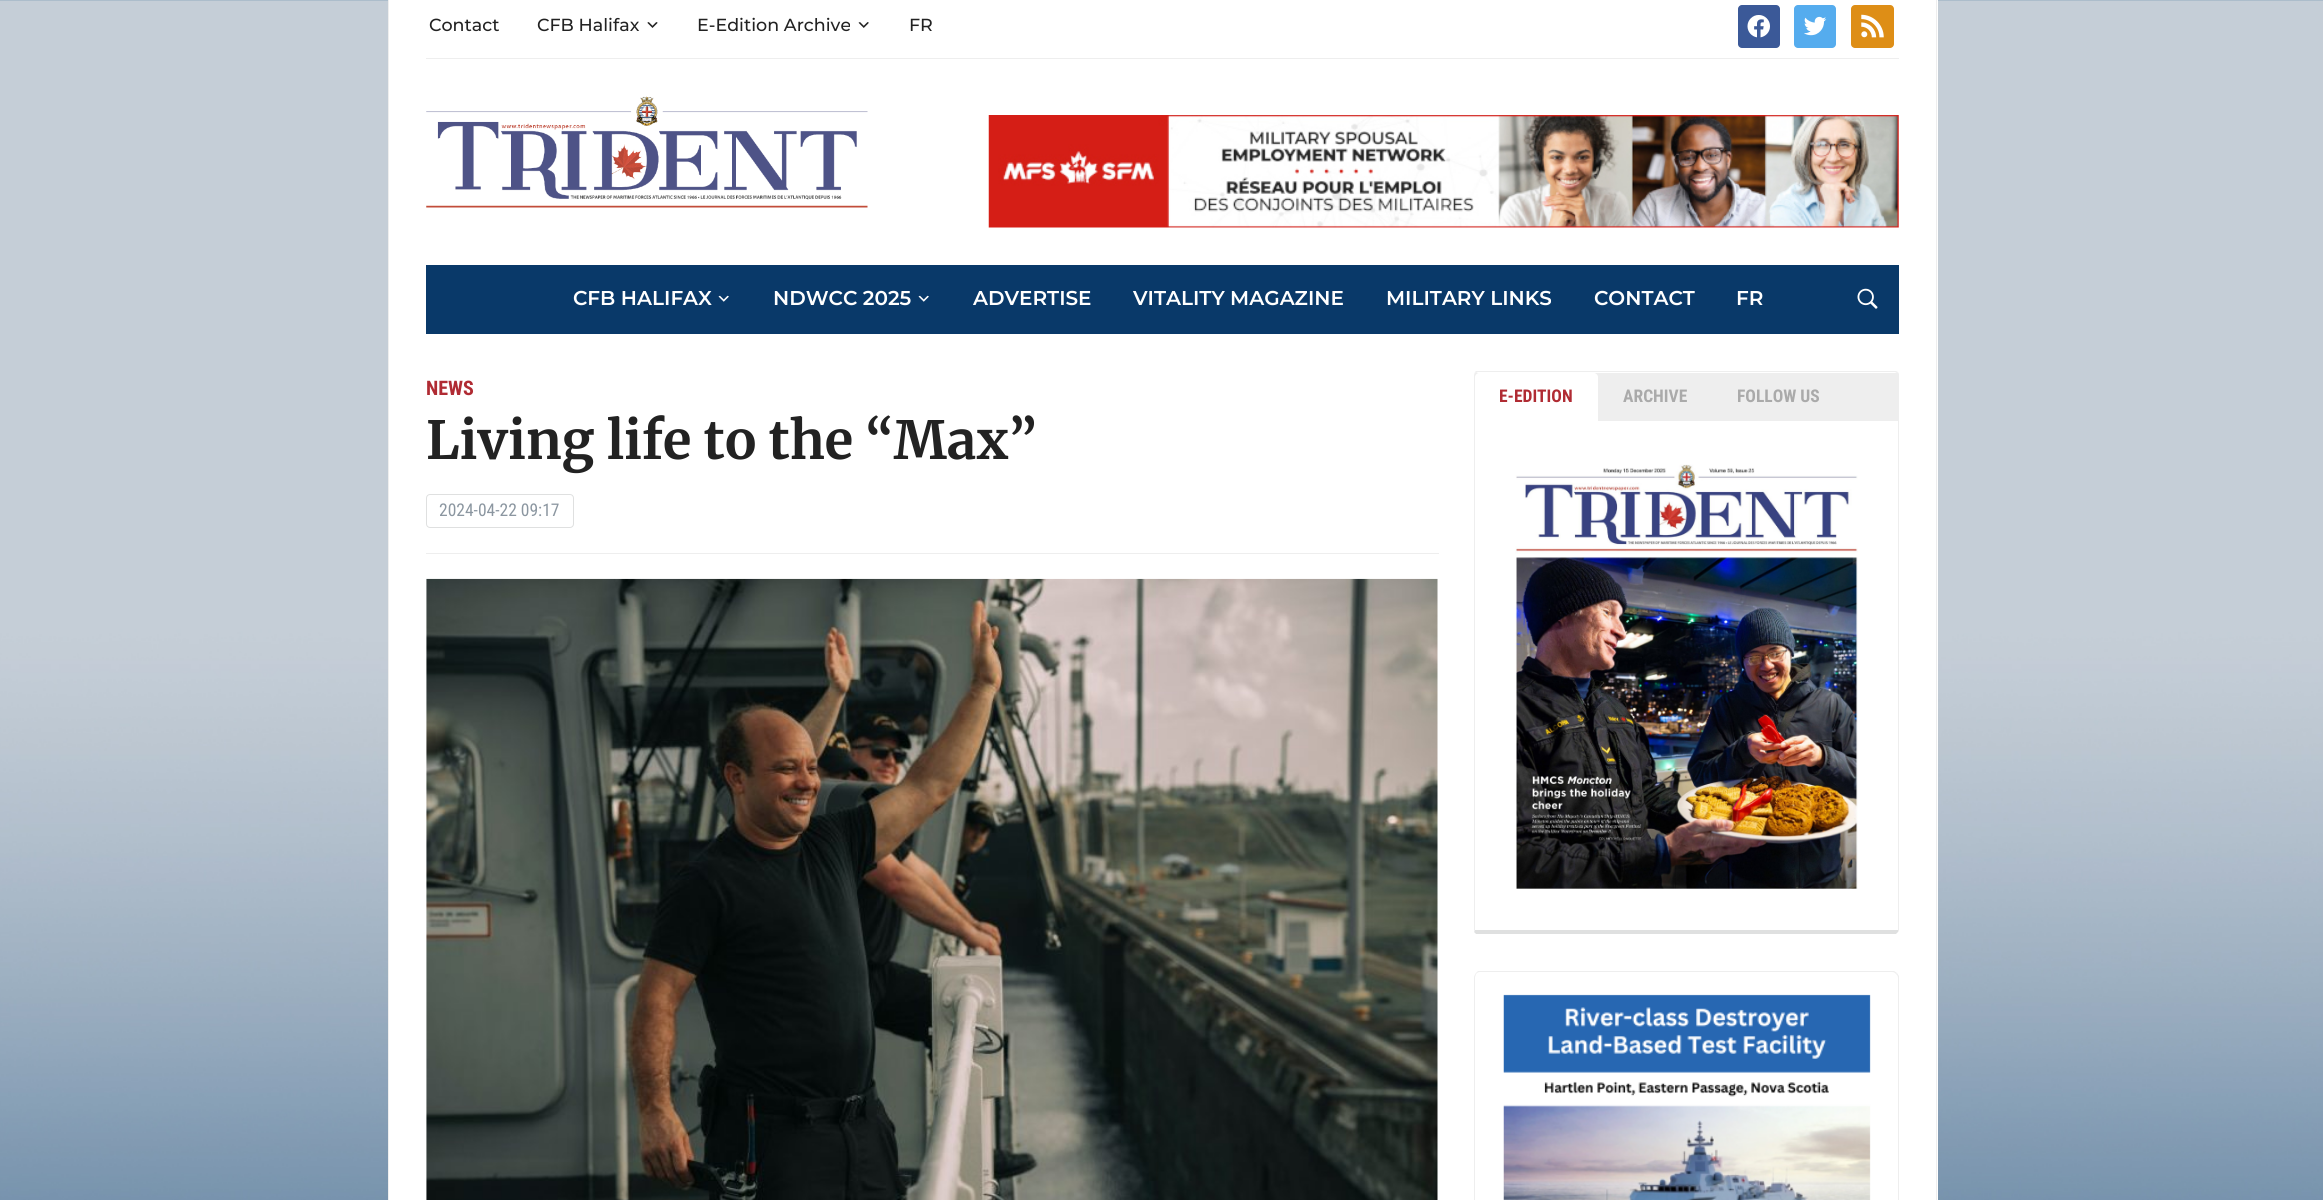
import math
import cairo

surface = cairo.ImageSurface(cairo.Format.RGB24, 2323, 1200)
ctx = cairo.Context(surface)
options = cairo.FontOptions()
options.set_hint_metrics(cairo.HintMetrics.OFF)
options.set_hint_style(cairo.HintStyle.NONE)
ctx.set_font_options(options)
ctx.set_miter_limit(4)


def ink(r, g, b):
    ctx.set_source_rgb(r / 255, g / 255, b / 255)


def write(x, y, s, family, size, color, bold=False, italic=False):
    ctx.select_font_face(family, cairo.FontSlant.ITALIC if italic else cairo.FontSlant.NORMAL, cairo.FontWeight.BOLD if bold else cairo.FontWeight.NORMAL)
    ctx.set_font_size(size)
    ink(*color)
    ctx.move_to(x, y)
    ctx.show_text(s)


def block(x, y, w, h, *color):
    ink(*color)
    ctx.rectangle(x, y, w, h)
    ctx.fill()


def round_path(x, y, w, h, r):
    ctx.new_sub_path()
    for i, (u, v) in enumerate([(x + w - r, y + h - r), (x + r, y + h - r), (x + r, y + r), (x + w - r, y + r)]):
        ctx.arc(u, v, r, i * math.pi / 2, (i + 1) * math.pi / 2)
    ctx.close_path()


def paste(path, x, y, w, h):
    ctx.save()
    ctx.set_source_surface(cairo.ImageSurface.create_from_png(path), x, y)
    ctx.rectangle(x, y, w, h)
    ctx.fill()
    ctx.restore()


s1 = dict(family="Montserrat Medium", size=17.5, color=(34, 34, 34))
s2 = dict(family="Montserrat SemiBold", size=20, color=(255, 255, 255))
s3 = dict(family="Roboto Condensed", size=20, color=(176, 43, 51), bold=True)
s4 = dict(family="Merriweather", size=52.5, color=(34, 34, 34), bold=True)
s5 = dict(family="Roboto Condensed", size=17.5, color=(139, 150, 160))
s6 = dict(family="Roboto Condensed", size=17.5, color=(176, 43, 51), bold=True)
s7 = dict(family="Roboto Condensed", size=17.5, color=(170, 170, 170), bold=True)

ink(255, 255, 255)
ctx.paint()
paste("pic1.png", 0, 0, 2323, 1200)
block(389, 0, 1549, 1200, 255, 255, 255)
block(1936, 0, 1, 1200, 238, 238, 238)
block(388, 0, 1, 1200, 238, 238, 238)
block(426, 58, 1473, 1, 238, 238, 238)
write(429, 31, "Contact", **s1)
write(537, 31, "CFB Halifax", **s1)
paste("pic2.png", 647, 22, 11, 6)
write(697, 31, "E-Edition Archive", **s1)
paste("pic3.png", 858, 22, 11, 6)
write(909, 31, "FR", **s1)
ink(59, 89, 152)
round_path(1738, 5, 42, 43, 4)
ctx.fill()
paste("pic4.png", 1747, 15, 23, 23)
ink(85, 172, 238)
round_path(1794, 5, 42, 43, 4)
ctx.fill()
paste("pic5.png", 1804, 16, 23, 20)
ink(222, 142, 22)
round_path(1851, 5, 43, 43, 4)
ctx.fill()
paste("pic6.png", 1861, 14, 23, 24)
paste("pic7.png", 426, 96, 442, 112)
paste("pic8.png", 988, 115, 911, 113)
block(426, 265, 1473, 69, 9, 57, 105)
write(573, 305, "CFB HALIFAX", **s2)
paste("pic9.png", 718, 295, 11, 7)
write(773, 305, "NDWCC 2025", **s2)
paste("pic9.png", 918, 295, 11, 7)
write(973, 305, "ADVERTISE", **s2)
write(1133, 305, "VITALITY MAGAZINE", **s2)
write(1386, 305, "MILITARY LINKS", **s2)
write(1594, 305, "CONTACT", **s2)
write(1736, 305, "FR", **s2)
paste("pic10.png", 1857, 288, 21, 21)
write(426, 395, "NEWS", **s3)
write(426, 459, "Living life to the “Max”", **s4)
block(426, 553, 1013, 1, 238, 238, 238)
round_path(426.5, 494.5, 147, 33, 3.5)
ink(223, 224, 224)
ctx.set_line_width(1)
ctx.stroke()
write(439, 516, "2024-04-22 09:17", **s5)
paste("pic11.png", 426, 578, 1012, 622)
ink(238, 238, 238)
ctx.new_path()
ctx.move_to(1478, 372)
ctx.line_to(1476, 373)
ctx.line_to(1475, 372)
ctx.line_to(1476, 371)
ctx.line_to(1896, 371)
ctx.line_to(1898, 372)
ctx.line_to(1897, 373)
ctx.line_to(1895, 372)
ctx.close_path()
ctx.fill()
ctx.new_path()
ctx.move_to(1899, 931)
ctx.line_to(1898, 932)
ctx.line_to(1898, 930)
ctx.line_to(1898, 375)
ctx.line_to(1897, 373)
ctx.line_to(1898, 372)
ctx.line_to(1899, 374)
ctx.close_path()
ctx.fill()
ink(223, 224, 224)
ctx.new_path()
ctx.move_to(1476, 934)
ctx.line_to(1474, 932)
ctx.line_to(1475, 930)
ctx.line_to(1898, 930)
ctx.line_to(1898, 932)
ctx.line_to(1896, 934)
ctx.close_path()
ctx.fill()
ink(238, 238, 238)
ctx.new_path()
ctx.move_to(1474, 932)
ctx.line_to(1474, 930)
ctx.line_to(1474, 375)
ctx.line_to(1475, 372)
ctx.line_to(1476, 373)
ctx.line_to(1475, 375)
ctx.line_to(1475, 930)
ctx.close_path()
ctx.fill()
block(1475, 373, 423, 48, 238, 238, 238)
ink(255, 255, 255)
ctx.new_path()
ctx.move_to(1479, 373)
ctx.line_to(1594, 373)
ctx.curve_to(1596, 373, 1598, 375, 1598, 377)
ctx.line_to(1598, 421)
ctx.line_to(1475, 421)
ctx.line_to(1475, 377)
ctx.curve_to(1475, 375, 1477, 373, 1479, 373)
ctx.close_path()
ctx.fill()
write(1499, 402, "E-EDITION", **s6)
write(1623, 402, "ARCHIVE", **s7)
write(1737, 402, "FOLLOW US", **s7)
paste("pic12.png", 1515, 464, 343, 425)
ink(238, 238, 238)
ctx.new_path()
ctx.move_to(1480, 972)
ctx.curve_to(1478, 972, 1477, 973, 1476, 974)
ctx.line_to(1476, 973)
ctx.line_to(1478, 971)
ctx.line_to(1894, 971)
ctx.line_to(1897, 973)
ctx.line_to(1896, 974)
ctx.curve_to(1895, 973, 1894, 972, 1892, 972)
ctx.close_path()
ctx.fill()
ctx.new_path()
ctx.move_to(1899, 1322)
ctx.line_to(1898, 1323)
ctx.line_to(1897, 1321)
ctx.line_to(1898, 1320)
ctx.line_to(1898, 978)
ctx.curve_to(1898, 976, 1897, 975, 1896, 974)
ctx.line_to(1897, 973)
ctx.line_to(1899, 976)
ctx.close_path()
ctx.fill()
ctx.new_path()
ctx.move_to(1475, 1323)
ctx.line_to(1474, 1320)
ctx.line_to(1474, 978)
ctx.curve_to(1474, 976, 1475, 974, 1476, 973)
ctx.line_to(1476, 974)
ctx.line_to(1475, 977)
ctx.line_to(1475, 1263)
ctx.curve_to(1475, 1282, 1460, 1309, 1476, 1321)
ctx.close_path()
ctx.fill()
paste("pic13.png", 1503, 994, 368, 206)
surface.write_to_png("screenshot.png")
